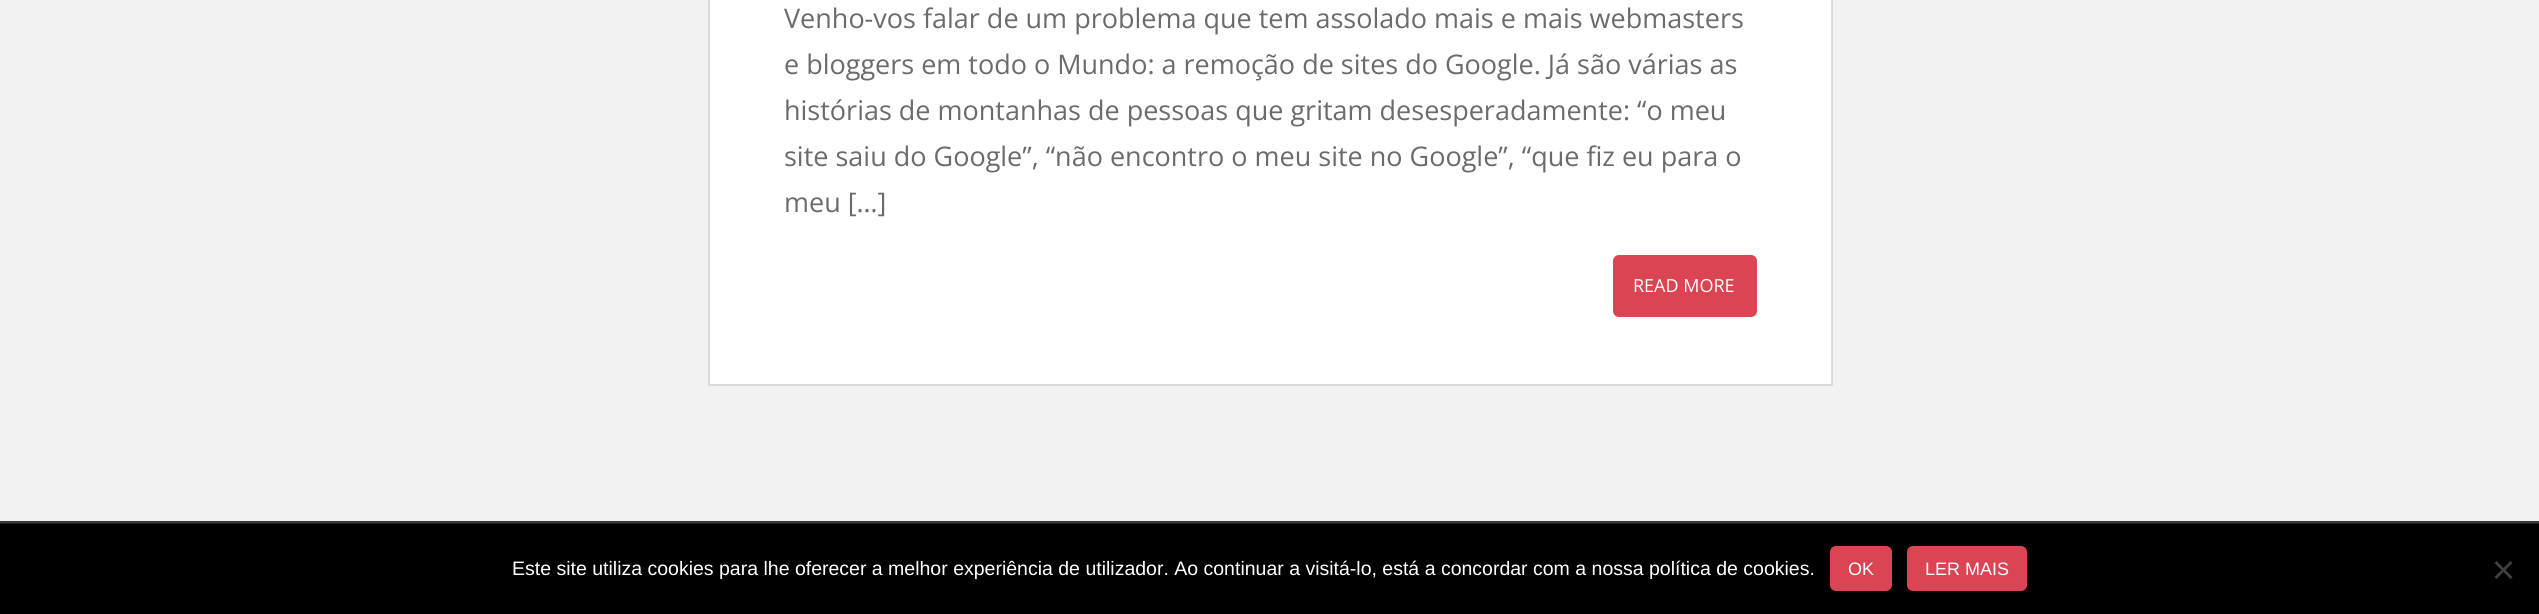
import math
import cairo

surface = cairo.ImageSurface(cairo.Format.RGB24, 2539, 614)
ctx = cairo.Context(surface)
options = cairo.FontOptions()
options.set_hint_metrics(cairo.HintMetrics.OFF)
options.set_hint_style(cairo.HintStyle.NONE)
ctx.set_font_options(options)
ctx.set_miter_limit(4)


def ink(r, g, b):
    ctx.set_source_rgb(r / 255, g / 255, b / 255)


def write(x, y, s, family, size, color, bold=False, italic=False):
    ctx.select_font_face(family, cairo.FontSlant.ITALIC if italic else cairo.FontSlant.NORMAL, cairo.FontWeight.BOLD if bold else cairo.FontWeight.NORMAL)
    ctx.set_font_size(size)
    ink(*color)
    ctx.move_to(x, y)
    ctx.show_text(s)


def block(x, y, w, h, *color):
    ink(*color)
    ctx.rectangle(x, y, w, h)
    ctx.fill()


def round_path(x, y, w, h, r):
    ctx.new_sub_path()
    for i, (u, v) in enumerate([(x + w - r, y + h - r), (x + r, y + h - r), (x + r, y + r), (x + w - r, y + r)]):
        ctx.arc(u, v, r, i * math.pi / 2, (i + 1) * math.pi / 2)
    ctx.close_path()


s1 = dict(family="Open Sans", size=27, color=(107, 107, 107))
s2 = dict(family="Open Sans", size=18, color=(255, 255, 255))
s3 = dict(family="Liberation Sans", size=19.5, color=(255, 255, 255))
s4 = dict(family="Liberation Sans", size=18, color=(255, 255, 255))

ink(242, 242, 242)
ctx.paint()
ink(255, 255, 255)
ctx.rectangle(709, -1, 1123, 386)
ctx.fill_preserve()
ink(218, 218, 218)
ctx.stroke()
write(784, 28, "Venho-vos falar de um problema que tem assolado mais e mais webmasters", **s1)
write(784, 74, "e bloggers em todo o Mundo: a remoção de sites do Google. Já são várias as", **s1)
write(784, 120, "histórias de montanhas de pessoas que gritam desesperadamente: “o meu", **s1)
write(784, 166, "site saiu do Google”, “não encontro o meu site no Google”, “que fiz eu para o", **s1)
write(784, 212, "meu […]", **s1)
ink(218, 68, 83)
round_path(1614, 256, 142, 60, 5)
ctx.fill_preserve()
ctx.stroke()
write(1633, 292, "READ MORE", **s2)
block(0, 523, 2539, 1, 31, 31, 31)
block(0, 521, 2539, 2, 58, 58, 58)
block(0, 524, 2539, 90, 0, 0, 0)
write(512, 575, "Este site utiliza cookies para lhe oferecer a melhor experiência de utilizador. Ao continuar a visitá-lo, está a concordar com a nossa política de cookies.", **s3)
ink(218, 68, 83)
round_path(1830, 546, 62, 45, 6)
ctx.fill()
write(1848, 575, "OK", **s4)
ink(218, 68, 83)
round_path(1907, 546, 120, 45, 6)
ctx.fill()
write(1925, 575, "LER MAIS", **s4)
ink(64, 64, 64)
ctx.new_path()
ctx.move_to(2510.5, 561)
ctx.line_to(2512.5, 563)
ctx.line_to(2496.5, 579)
ctx.line_to(2494.5, 577)
ctx.close_path()
ctx.fill()
ctx.new_path()
ctx.move_to(2494.5, 563)
ctx.line_to(2496.5, 561)
ctx.line_to(2512.5, 577)
ctx.line_to(2510.5, 579)
ctx.close_path()
ctx.fill()
surface.write_to_png("screenshot.png")
